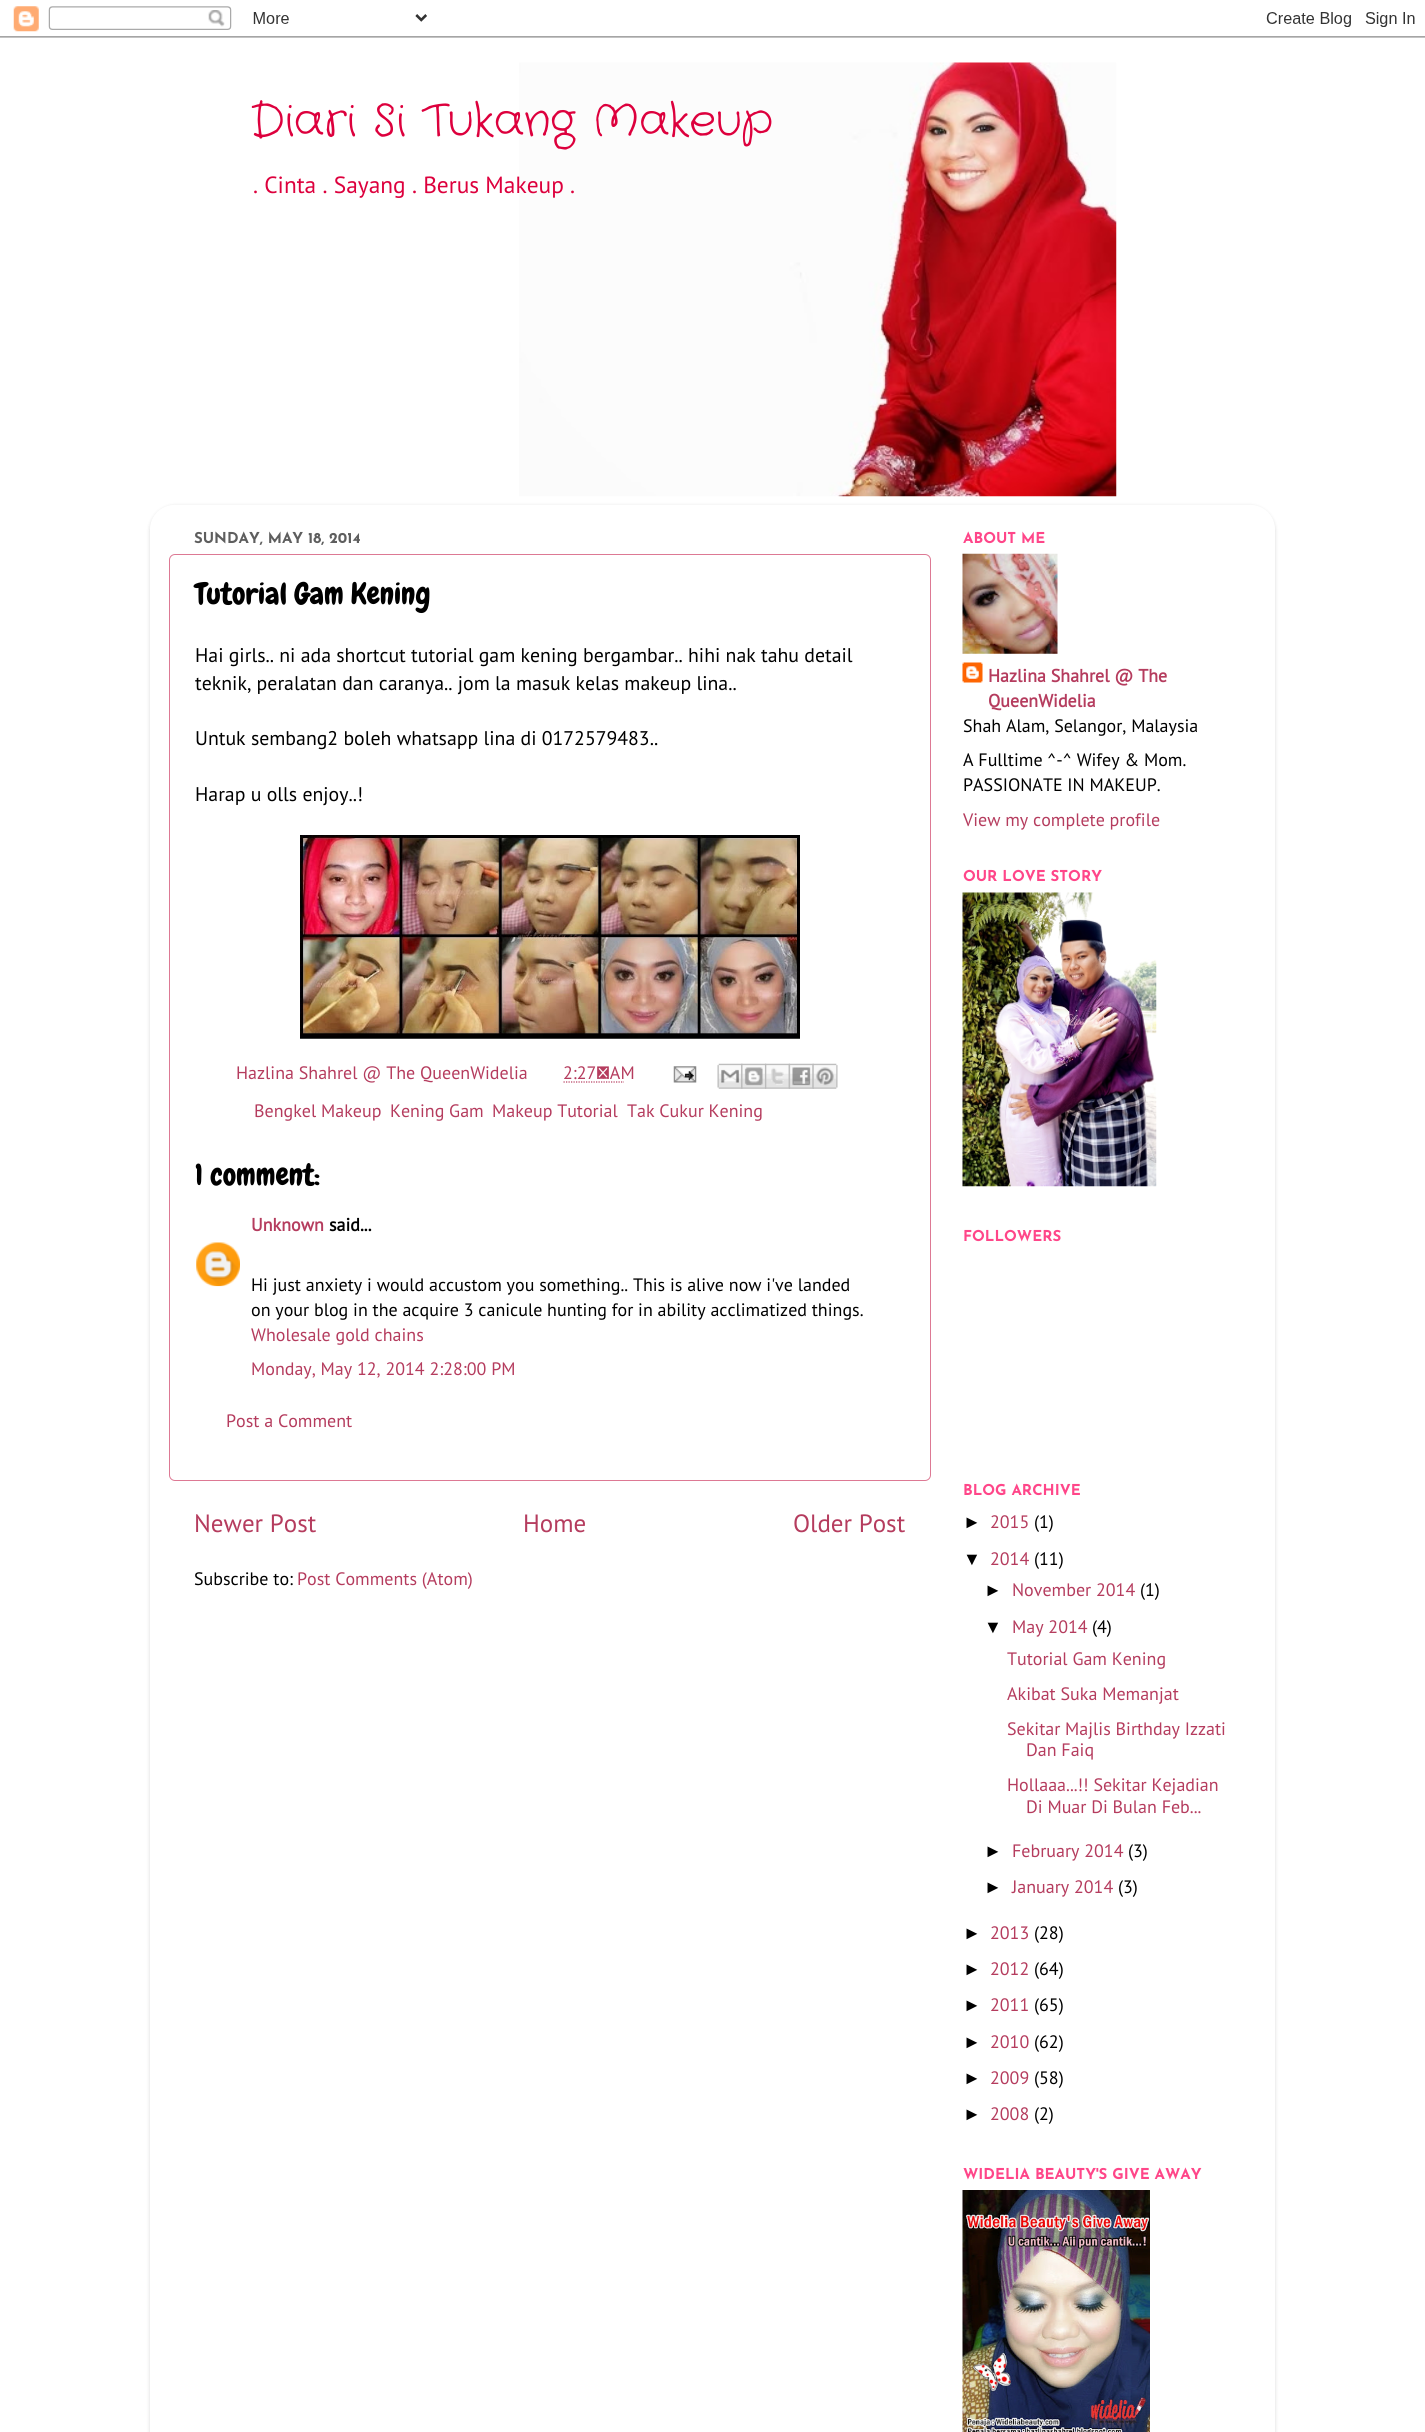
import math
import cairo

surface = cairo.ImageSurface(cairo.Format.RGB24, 1425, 2432)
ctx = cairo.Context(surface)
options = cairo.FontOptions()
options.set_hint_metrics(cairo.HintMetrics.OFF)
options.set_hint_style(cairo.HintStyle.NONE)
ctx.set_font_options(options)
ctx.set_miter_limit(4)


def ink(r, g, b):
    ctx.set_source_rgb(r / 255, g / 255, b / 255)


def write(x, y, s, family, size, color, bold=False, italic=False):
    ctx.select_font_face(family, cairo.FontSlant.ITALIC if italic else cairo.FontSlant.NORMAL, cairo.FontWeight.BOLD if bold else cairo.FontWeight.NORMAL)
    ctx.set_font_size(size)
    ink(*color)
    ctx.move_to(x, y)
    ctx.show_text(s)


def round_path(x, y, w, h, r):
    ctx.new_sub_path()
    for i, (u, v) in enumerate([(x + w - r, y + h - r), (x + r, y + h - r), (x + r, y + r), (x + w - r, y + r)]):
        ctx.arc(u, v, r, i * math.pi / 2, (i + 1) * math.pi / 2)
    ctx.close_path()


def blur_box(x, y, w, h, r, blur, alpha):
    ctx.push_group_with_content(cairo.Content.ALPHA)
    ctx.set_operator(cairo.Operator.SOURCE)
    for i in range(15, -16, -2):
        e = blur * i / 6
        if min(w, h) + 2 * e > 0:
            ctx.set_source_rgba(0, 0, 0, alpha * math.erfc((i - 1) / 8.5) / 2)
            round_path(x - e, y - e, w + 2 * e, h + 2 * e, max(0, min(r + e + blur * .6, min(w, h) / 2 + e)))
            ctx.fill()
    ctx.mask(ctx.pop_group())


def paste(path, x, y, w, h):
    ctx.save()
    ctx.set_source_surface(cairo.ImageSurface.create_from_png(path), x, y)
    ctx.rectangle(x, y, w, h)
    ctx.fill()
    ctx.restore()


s1 = dict(family="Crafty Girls", size=45, color=(221, 0, 61))
s2 = dict(family="PT Sans", size=23.4, color=(221, 0, 61))
s3 = dict(family="Josefin Sans Thin", size=15, color=(94, 94, 94))
s4 = dict(family="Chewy", size=30, color=(0, 0, 0))
s5 = dict(family="PT Sans", size=19.8, color=(0, 0, 0))
s6 = dict(family="PT Sans", size=18, color=(181, 60, 94))
s7 = dict(family="PT Sans", size=18, color=(181, 60, 94), bold=True)
s8 = dict(family="PT Sans", size=18, color=(0, 0, 0), bold=True)
s9 = dict(family="PT Sans", size=18, color=(0, 0, 0))
s10 = dict(family="PT Sans", size=25, color=(181, 60, 94))
s11 = dict(family="Josefin Sans Thin", size=15, color=(255, 70, 137))
s12 = dict(family="Liberation Sans", size=18, color=(0, 0, 0))

ink(255, 255, 255)
ctx.paint()
paste("pic1.png", 0, 6, 1425, 32)
paste("pic2.png", 519, 62, 598, 435)
write(250, 134, "Diari Si Tukang Makeup", **s1)
write(253, 193, ". Cinta . Sayang . Berus Makeup .", **s2)
ctx.save()
ctx.set_fill_rule(cairo.FillRule.EVEN_ODD)
ctx.new_path()
ctx.move_to(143, 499)
ctx.line_to(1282, 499)
ctx.line_to(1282, 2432)
ctx.line_to(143, 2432)
ctx.close_path()
ctx.move_to(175, 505)
ctx.line_to(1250, 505)
ctx.curve_to(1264, 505, 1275, 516, 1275, 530)
ctx.line_to(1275, 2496)
ctx.line_to(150, 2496)
ctx.line_to(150, 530)
ctx.curve_to(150, 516, 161, 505, 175, 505)
ctx.close_path()
ctx.clip()
ink(0, 0, 0)
blur_box(150, 506, 1125, 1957, 25, 2, 0.15)
ctx.restore()
write(194, 543, "SUNDAY, MAY 18, 2014", **s3)
round_path(169.5, 554.5, 761, 926, 5.5)
ink(221, 121, 148)
ctx.set_line_width(1)
ctx.stroke()
write(195, 604, "Tutorial Gam Kening", **s4)
write(195, 662, "Hai girls.. ni ada shortcut tutorial gam kening bergambar.. hihi nak tahu detail", **s5)
write(195, 690, "teknik, peralatan dan caranya.. jom la masuk kelas makeup lina..", **s5)
write(195, 745, "Untuk sembang2 boleh whatsapp lina di 0172579483..", **s5)
write(195, 801, "Harap u olls enjoy..!", **s5)
paste("pic3.png", 300, 835, 500, 204)
write(236, 1079, "Hazlina Shahrel @ The QueenWidelia", **s6)
write(563, 1079, "2:27 AM", **s6)
ctx.new_path()
ctx.move_to(563.5, 1082)
ctx.line_to(624, 1082)
ctx.set_line_width(1.2)
ctx.set_dash([1.25, 1.25])
ctx.stroke()
paste("pic4.png", 673, 1066, 24, 17)
paste("pic5.png", 717, 1063, 26, 26)
paste("pic6.png", 741, 1063, 26, 26)
paste("pic7.png", 765, 1063, 25, 26)
paste("pic8.png", 788, 1063, 26, 26)
paste("pic9.png", 812, 1063, 26, 26)
write(254, 1117, "Bengkel Makeup", **s6)
write(390, 1117, "Kening Gam", **s6)
write(492, 1117, "Makeup Tutorial", **s6)
write(627, 1117, "Tak Cukur Kening", **s6)
write(195, 1185, "1 comment:", **s4)
write(251, 1231, "Unknown", **s7)
write(329, 1231, "said...", **s8)
paste("pic10.png", 196, 1242, 44, 45)
write(251, 1291, "Hi just anxiety i would accustom you something.. This is alive now i've landed", **s9)
write(251, 1316, "on your blog in the acquire 3 canicule hunting for in ability acclimatized things.", **s9)
write(251, 1341, "Wholesale gold chains", **s6)
write(251, 1375, "Monday, May 12, 2014 2:28:00 PM", **s6)
write(226, 1427, "Post a Comment", **s6)
write(194, 1532, "Newer Post", **s10)
write(523, 1532, "Home", **s10)
write(793, 1532, "Older Post", **s10)
write(194, 1585, "Subscribe to:", **s9)
write(297, 1585, "Post Comments (Atom)", **s6)
write(963, 543, "ABOUT ME", **s11)
paste("pic11.png", 962, 553, 96, 101)
paste("pic12.png", 962, 662, 21, 21)
write(988, 682, "Hazlina Shahrel @ The", **s7)
write(988, 707, "QueenWidelia", **s7)
write(963, 732, "Shah Alam, Selangor, Malaysia", **s9)
write(963, 766, "A Fulltime ^-^ Wifey & Mom.", **s9)
write(963, 791, "PASSIONATE IN MAKEUP.", **s9)
write(963, 826, "View my complete profile", **s6)
write(963, 881, "OUR LOVE STORY", **s11)
paste("pic13.png", 962, 892, 195, 295)
write(963, 1241, "FOLLOWERS", **s11)
write(963, 1495, "BLOG ARCHIVE", **s11)
write(963, 1528, "►", **s12)
write(990, 1528, "2015", **s6)
write(1034, 1528, "(1)", **s9)
write(963, 1565, "▼", **s12)
write(990, 1565, "2014", **s6)
write(1034, 1565, "(11)", **s9)
write(984, 1596, "►", **s12)
write(1012, 1596, "November 2014", **s6)
write(1140, 1596, "(1)", **s9)
write(984, 1633, "▼", **s12)
write(1012, 1633, "May 2014", **s6)
write(1092, 1633, "(4)", **s9)
write(1007, 1665, "Tutorial Gam Kening", **s6)
write(1007, 1700, "Akibat Suka Memanjat", **s6)
write(1007, 1735, "Sekitar Majlis Birthday Izzati", **s6)
write(1026, 1756, "Dan Faiq", **s6)
write(1007, 1791, "Hollaaa...!! Sekitar Kejadian", **s6)
write(1026, 1813, "Di Muar Di Bulan Feb...", **s6)
write(984, 1857, "►", **s12)
write(1012, 1857, "February 2014", **s6)
write(1128, 1857, "(3)", **s9)
write(984, 1893, "►", **s12)
write(1012, 1893, "January 2014", **s6)
write(1118, 1893, "(3)", **s9)
write(963, 1939, "►", **s12)
write(990, 1939, "2013", **s6)
write(1034, 1939, "(28)", **s9)
write(963, 1975, "►", **s12)
write(990, 1975, "2012", **s6)
write(1034, 1975, "(64)", **s9)
write(963, 2011, "►", **s12)
write(990, 2011, "2011", **s6)
write(1034, 2011, "(65)", **s9)
write(963, 2048, "►", **s12)
write(990, 2048, "2010", **s6)
write(1034, 2048, "(62)", **s9)
write(963, 2084, "►", **s12)
write(990, 2084, "2009", **s6)
write(1034, 2084, "(58)", **s9)
write(963, 2120, "►", **s12)
write(990, 2120, "2008", **s6)
write(1034, 2120, "(2)", **s9)
write(963, 2179, "WIDELIA BEAUTY'S GIVE AWAY", **s11)
paste("pic14.png", 962, 2190, 188, 242)
surface.write_to_png("screenshot.png")
